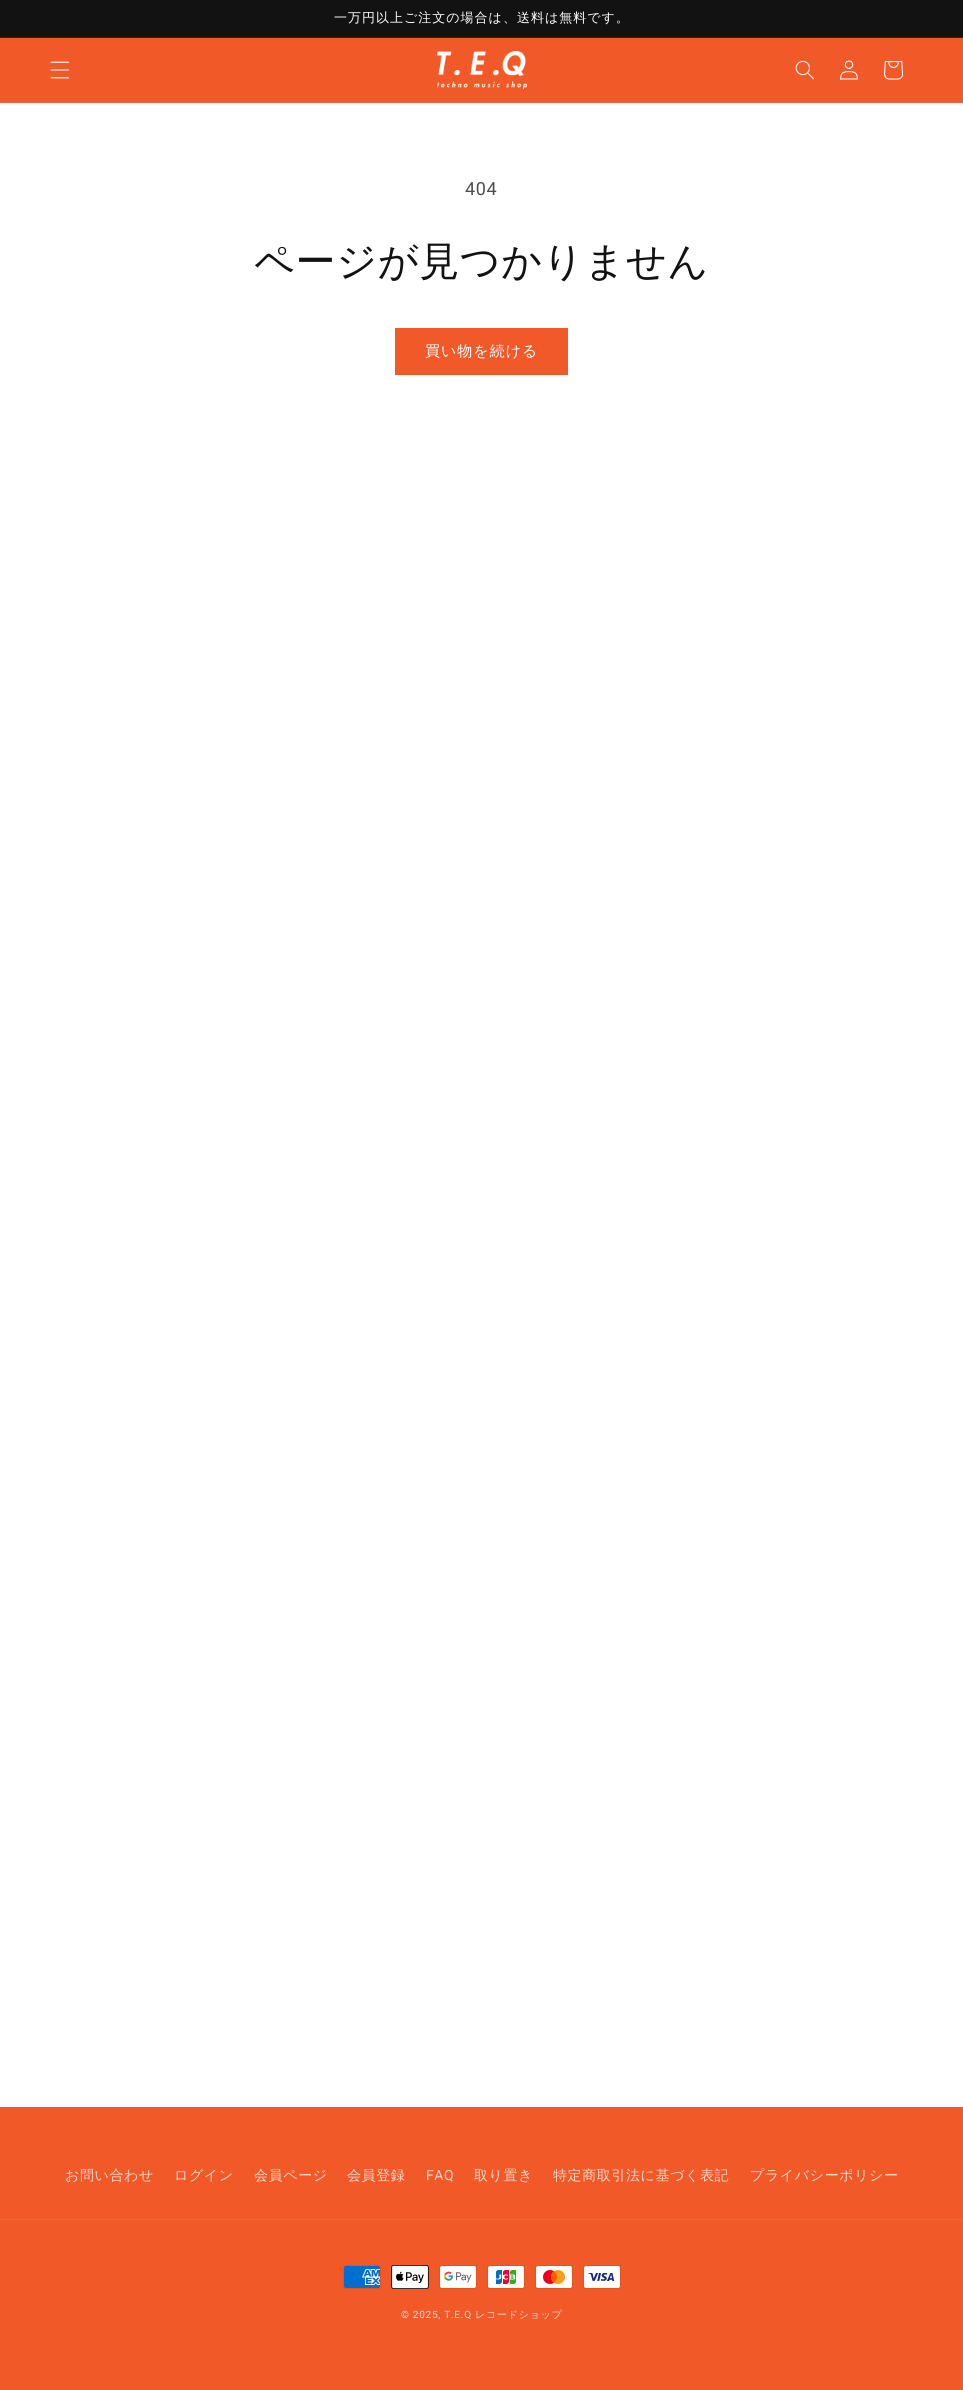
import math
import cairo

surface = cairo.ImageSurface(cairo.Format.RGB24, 963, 2390)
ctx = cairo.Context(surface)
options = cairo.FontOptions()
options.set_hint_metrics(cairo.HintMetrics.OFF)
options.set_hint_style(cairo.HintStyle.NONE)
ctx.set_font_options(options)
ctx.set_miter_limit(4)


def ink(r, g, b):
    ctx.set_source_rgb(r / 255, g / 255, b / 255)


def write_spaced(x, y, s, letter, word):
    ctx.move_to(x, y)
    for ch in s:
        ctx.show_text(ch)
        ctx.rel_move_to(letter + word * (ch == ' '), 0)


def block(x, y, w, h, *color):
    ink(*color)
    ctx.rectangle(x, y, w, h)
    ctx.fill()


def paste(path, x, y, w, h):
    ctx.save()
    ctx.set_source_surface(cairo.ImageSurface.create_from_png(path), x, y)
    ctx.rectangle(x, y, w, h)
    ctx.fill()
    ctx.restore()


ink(255, 255, 255)
ctx.paint()
block(0, 0, 963, 37, 18, 18, 18)
block(0, 37, 963, 1, 37, 37, 37)
ctx.select_font_face("WenQuanYi Zen Hei Medium")
ctx.set_font_size(13)
ink(255, 255, 255)
write_spaced(334, 22, "一万円以上ご注文の場合は、送料は無料です。", 1, 0)
block(0, 38, 963, 64, 241, 90, 40)
block(0, 102, 963, 1, 242, 103, 57)
paste("pic1.png", 50, 61, 20, 18)
paste("pic2.png", 437, 51, 90, 38)
paste("pic3.png", 795, 60, 19, 20)
paste("pic4.png", 840, 60, 18, 20)
paste("pic5.png", 884, 61, 20, 19)
ctx.select_font_face("Roboto")
ctx.set_font_size(18)
ink(77, 77, 77)
write_spaced(465, 195, "404", 0.6, 0)
ctx.select_font_face("WenQuanYi Zen Hei Medium")
ctx.set_font_size(40)
ink(18, 18, 18)
write_spaced(254, 275, "ページが見つかりません", 0.6, 0)
block(395, 328, 173, 47, 241, 90, 40)
ctx.set_font_size(15)
ink(255, 255, 255)
write_spaced(425, 356, "買い物を続ける", 1, 0)
block(0, 2107, 963, 283, 241, 90, 40)
ctx.set_font_size(14)
ink(252, 214, 201)
write_spaced(65, 2180, "お問い合わせ", 0.6, 0)
write_spaced(174, 2180, "ログイン", 0.6, 0)
write_spaced(254, 2180, "会員ページ", 0.6, 0)
write_spaced(347, 2180, "会員登録", 0.6, 0)
ctx.select_font_face("Roboto")
write_spaced(426, 2180, "FAQ", 0.6, 0)
ctx.select_font_face("WenQuanYi Zen Hei Medium")
write_spaced(474, 2180, "取り置き", 0.6, 0)
write_spaced(553, 2180, "特定商取引法に基づく表記", 0.6, 0)
write_spaced(750, 2180, "プライバシーポリシー", 0.6, 0)
block(0, 2219, 963, 1, 242, 103, 57)
paste("pic6.png", 343, 2265, 38, 24)
paste("pic7.png", 391, 2265, 38, 24)
paste("pic8.png", 439, 2265, 38, 24)
paste("pic9.png", 487, 2265, 38, 24)
paste("pic10.png", 535, 2265, 38, 24)
paste("pic11.png", 583, 2265, 38, 24)
ctx.select_font_face("Roboto")
ctx.set_font_size(10)
ink(252, 214, 201)
write_spaced(401, 2318, "© 2025, T.E.Q", 0.75, 0)
ctx.select_font_face("WenQuanYi Zen Hei Medium")
write_spaced(475, 2318, "レコードショップ", 0.75, 0)
surface.write_to_png("screenshot.png")
